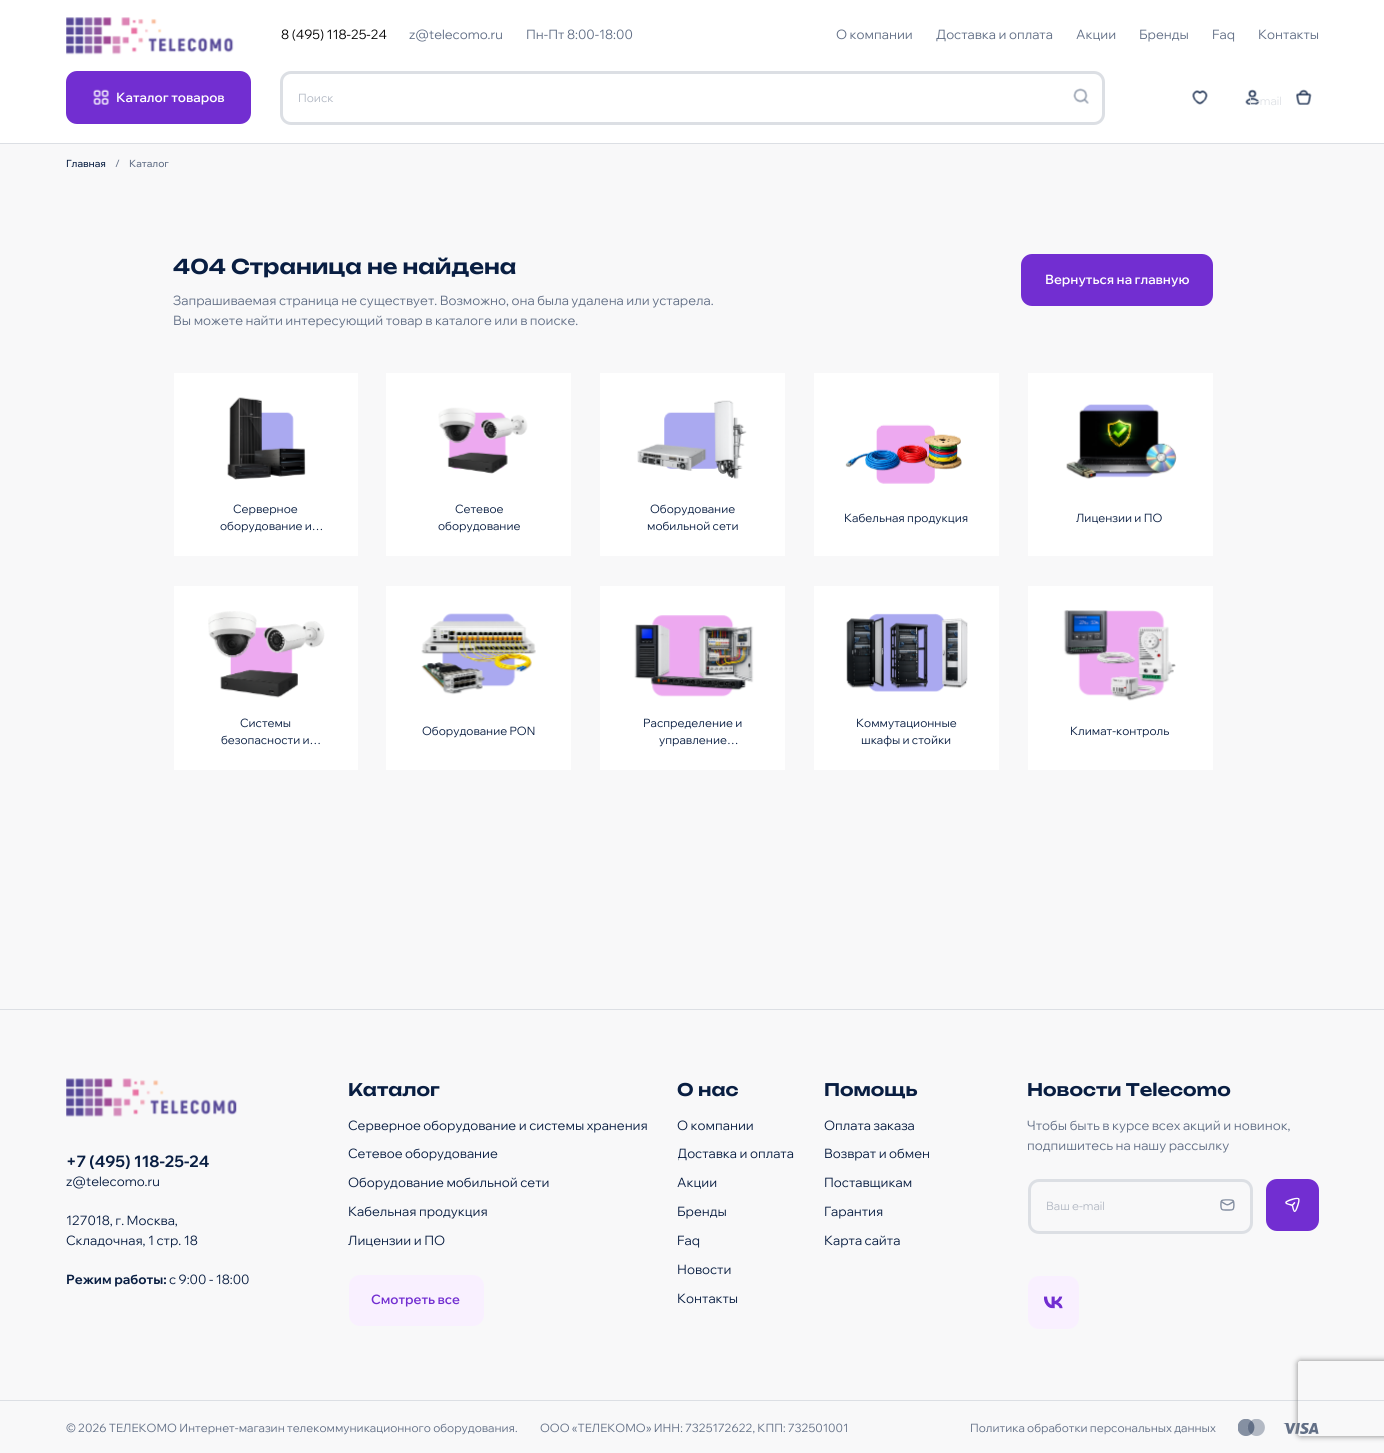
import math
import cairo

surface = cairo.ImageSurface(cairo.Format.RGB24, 1384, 1453)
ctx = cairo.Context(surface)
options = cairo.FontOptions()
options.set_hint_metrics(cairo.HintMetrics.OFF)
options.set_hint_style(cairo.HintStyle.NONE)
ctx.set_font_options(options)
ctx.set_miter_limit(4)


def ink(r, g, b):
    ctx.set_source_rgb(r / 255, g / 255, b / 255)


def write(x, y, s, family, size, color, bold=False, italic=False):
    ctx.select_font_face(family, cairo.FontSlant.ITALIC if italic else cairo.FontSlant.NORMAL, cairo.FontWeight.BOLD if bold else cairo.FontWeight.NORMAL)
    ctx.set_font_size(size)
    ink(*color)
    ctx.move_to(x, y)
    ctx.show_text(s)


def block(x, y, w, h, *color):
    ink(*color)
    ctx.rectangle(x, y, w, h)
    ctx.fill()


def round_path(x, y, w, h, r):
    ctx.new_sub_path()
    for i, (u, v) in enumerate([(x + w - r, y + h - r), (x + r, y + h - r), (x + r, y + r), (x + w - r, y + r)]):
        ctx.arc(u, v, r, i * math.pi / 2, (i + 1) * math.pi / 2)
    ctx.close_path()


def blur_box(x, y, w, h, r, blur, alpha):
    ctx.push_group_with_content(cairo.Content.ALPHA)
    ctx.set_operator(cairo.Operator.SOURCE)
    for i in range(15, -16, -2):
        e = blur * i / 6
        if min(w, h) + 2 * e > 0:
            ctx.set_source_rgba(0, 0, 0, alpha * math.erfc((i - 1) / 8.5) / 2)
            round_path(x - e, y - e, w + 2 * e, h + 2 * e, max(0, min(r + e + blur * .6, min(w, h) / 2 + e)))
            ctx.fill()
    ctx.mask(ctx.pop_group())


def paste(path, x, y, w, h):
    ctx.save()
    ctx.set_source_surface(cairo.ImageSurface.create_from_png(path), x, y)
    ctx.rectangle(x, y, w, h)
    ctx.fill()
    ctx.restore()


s1 = dict(family="Wix Madefor Display", size=13, color=(0, 0, 0))
s2 = dict(family="Wix Madefor Display", size=13, color=(98, 111, 134))
s3 = dict(family="Wix Madefor Display SemiBold", size=13, color=(255, 255, 255))
s4 = dict(family="Wix Madefor Display", size=11.55, color=(179, 185, 196))
s5 = dict(family="Wix Madefor Display Medium", size=10, color=(9, 30, 66))
s6 = dict(family="Wix Madefor Display Medium", size=10, color=(98, 111, 134))
s7 = dict(family="Unbounded SemiBold", size=20.25, color=(9, 30, 66))
s8 = dict(family="Wix Madefor Display", size=11.55, color=(9, 30, 66))
s9 = dict(family="Wix Madefor Display", size=15.9, color=(9, 30, 66), bold=True)
s10 = dict(family="Wix Madefor Display", size=13, color=(9, 30, 66))
s11 = dict(family="Wix Madefor Display", size=13, color=(9, 30, 66), bold=True)
s12 = dict(family="Unbounded SemiBold", size=17.25, color=(9, 30, 66))
s13 = dict(family="Wix Madefor Display SemiBold", size=13, color=(114, 46, 209))
s14 = dict(family="Wix Madefor Display", size=11.55, color=(98, 111, 134))
s15 = dict(family="Wix Madefor Display", size=11.55, color=(223, 226, 230))

ink(248, 248, 249)
ctx.paint()
block(0, 0, 1384, 143, 255, 255, 255)
block(0, 143, 1384, 1, 220, 223, 228)
paste("pic1.png", 66, 17, 168, 38)
write(281, 39, "8 (495) 118-25-24", **s1)
write(409, 39, "z@telecomo.ru", **s2)
write(526, 39, "Пн-Пт 8:00-18:00", **s2)
write(836, 39, "О компании", **s2)
write(936, 39, "Доставка и оплата", **s2)
write(1076, 39, "Акции", **s2)
write(1139, 39, "Бренды", **s2)
write(1212, 39, "Faq", **s2)
write(1258, 39, "Контакты", **s2)
ink(114, 46, 209)
round_path(66, 71, 185, 53, 11)
ctx.fill()
paste("pic2.png", 93, 89, 16, 16)
write(116, 102, "Каталог товаров", **s3)
round_path(281.5, 72.5, 822, 51, 9.5)
ink(220, 223, 228)
ctx.set_line_width(3)
ctx.stroke()
write(298, 102, "Поиск", **s4)
paste("pic3.png", 1073, 88, 16, 16)
paste("pic4.png", 1192, 90, 16, 15)
paste("pic5.png", 1245, 89, 15, 16)
paste("pic6.png", 1296, 89, 16, 16)
write(66, 167, "Главная", **s5)
write(115, 167, "/", **s6)
write(129, 167, "Каталог", **s6)
write(173, 274, "404 Страница не найдена", **s7)
write(173, 305, "Запрашиваемая страница не существует. Возможно, она была удалена или устарела.", **s2)
write(173, 325, "Вы можете найти интересующий товар в каталоге или в поиске.", **s2)
ink(114, 46, 209)
round_path(1021, 254, 192, 52, 11)
ctx.fill()
write(1045, 284, "Вернуться на главную", **s3)
block(174, 373, 184, 183, 255, 255, 255)
paste("pic7.png", 227, 397, 79, 83)
write(233, 513, "Серверное", **s8)
write(220, 530, "оборудование и…", **s8)
block(386, 373, 185, 183, 255, 255, 255)
paste("pic8.png", 438, 407, 90, 67)
write(455, 513, "Сетевое", **s8)
write(438, 530, "оборудование", **s8)
block(600, 373, 185, 183, 255, 255, 255)
paste("pic9.png", 637, 400, 110, 79)
write(650, 513, "Оборудование", **s8)
write(647, 530, "мобильной сети", **s8)
block(814, 373, 185, 183, 255, 255, 255)
paste("pic10.png", 845, 424, 117, 60)
write(844, 522, "Кабельная продукция", **s8)
block(1028, 373, 185, 183, 255, 255, 255)
paste("pic11.png", 1066, 404, 111, 75)
write(1076, 522, "Лицензии и ПО", **s8)
block(174, 586, 184, 184, 255, 255, 255)
paste("pic12.png", 208, 611, 117, 87)
write(240, 727, "Системы", **s8)
write(221, 744, "безопасности и…", **s8)
block(386, 586, 185, 184, 255, 255, 255)
paste("pic13.png", 421, 613, 115, 82)
write(422, 735, "Оборудование PON", **s8)
block(600, 586, 185, 184, 255, 255, 255)
paste("pic14.png", 634, 615, 120, 82)
write(643, 727, "Распределение и", **s8)
write(659, 744, "управление…", **s8)
block(814, 586, 185, 184, 255, 255, 255)
paste("pic15.png", 846, 613, 122, 79)
write(856, 727, "Коммутационные", **s8)
write(861, 744, "шкафы и стойки", **s8)
block(1028, 586, 185, 184, 255, 255, 255)
paste("pic16.png", 1063, 610, 113, 91)
write(1070, 735, "Климат-контроль", **s8)
block(0, 1009, 1384, 1, 220, 223, 228)
block(0, 1400, 1384, 1, 220, 223, 228)
paste("pic17.png", 66, 1078, 171, 39)
write(66, 1167, "+7 (495) 118-25-24", **s9)
write(66, 1186, "z@telecomo.ru", **s10)
write(66, 1225, "127018, г. Москва,", **s10)
write(66, 1245, "Складочная, 1 стр. 18", **s10)
write(66, 1284, "Режим работы:", **s11)
write(169, 1284, "с 9:00 - 18:00", **s10)
write(348, 1096, "Каталог", **s12)
write(348, 1130, "Серверное оборудование и системы хранения", **s10)
write(348, 1158, "Сетевое оборудование", **s10)
write(348, 1187, "Оборудование мобильной сети", **s10)
write(348, 1216, "Кабельная продукция", **s10)
write(348, 1245, "Лицензии и ПО", **s10)
ink(249, 240, 255)
round_path(349, 1275, 135, 51, 11)
ctx.fill()
write(371, 1304, "Смотреть все", **s13)
write(677, 1096, "О нас", **s12)
write(677, 1130, "О компании", **s10)
ctx.save()
ctx.rectangle(678, 1116, 116, 193)
ctx.clip()
write(677, 1158, "Доставка и оплата", **s10)
ctx.restore()
write(677, 1187, "Акции", **s10)
write(677, 1216, "Бренды", **s10)
write(677, 1245, "Faq", **s10)
write(677, 1274, "Новости", **s10)
write(677, 1303, "Контакты", **s10)
write(824, 1096, "Помощь", **s12)
write(824, 1130, "Оплата заказа", **s10)
write(824, 1158, "Возврат и обмен", **s10)
write(824, 1187, "Поставщикам", **s10)
write(824, 1216, "Гарантия", **s10)
write(824, 1245, "Карта сайта", **s10)
write(1027, 1096, "Новости Telecomo", **s12)
write(1027, 1130, "Чтобы быть в курсе всех акций и новинок,", **s2)
write(1027, 1150, "подпишитесь на нашу рассылку", **s2)
round_path(1029.5, 1180.5, 222, 52, 9.5)
ink(220, 223, 228)
ctx.stroke()
write(1046, 1210, "Ваш e-mail", **s4)
paste("pic18.png", 1220, 1199, 15, 12)
ink(114, 46, 209)
round_path(1266, 1179, 53, 52, 11)
ctx.fill()
paste("pic19.png", 1285, 1197, 15, 15)
ink(249, 240, 255)
round_path(1028, 1276, 51, 53, 11)
ctx.fill()
paste("pic20.png", 1044, 1296, 19, 13)
write(66, 1432, "© 2026 ТЕЛЕКОМО Интернет-магазин телекоммуникационного оборудования.", **s14)
write(540, 1432, "ООО «ТЕЛЕКОМО» ИНН: 7325172622, КПП: 732501001", **s14)
write(970, 1432, "Политика обработки персональных данных", **s14)
paste("pic21.png", 1238, 1419, 27, 17)
paste("pic22.png", 1283, 1423, 36, 11)
write(1249, 105, "E-mail", **s15)
ctx.save()
ctx.set_fill_rule(cairo.FillRule.EVEN_ODD)
ctx.new_path()
ctx.move_to(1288, 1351)
ctx.line_to(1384, 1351)
ctx.line_to(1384, 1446)
ctx.line_to(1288, 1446)
ctx.close_path()
ctx.move_to(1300.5, 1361)
ctx.line_to(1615.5, 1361)
ctx.curve_to(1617, 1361, 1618, 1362, 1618, 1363.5)
ctx.line_to(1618, 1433.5)
ctx.curve_to(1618, 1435, 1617, 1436, 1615.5, 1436)
ctx.line_to(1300.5, 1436)
ctx.curve_to(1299, 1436, 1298, 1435, 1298, 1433.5)
ctx.line_to(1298, 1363.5)
ctx.curve_to(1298, 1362, 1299, 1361, 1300.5, 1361)
ctx.close_path()
ctx.clip()
ink(128, 128, 128)
blur_box(1298, 1361, 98, 75, 2.5, 3, 1)
ctx.restore()
surface.write_to_png("screenshot.png")
